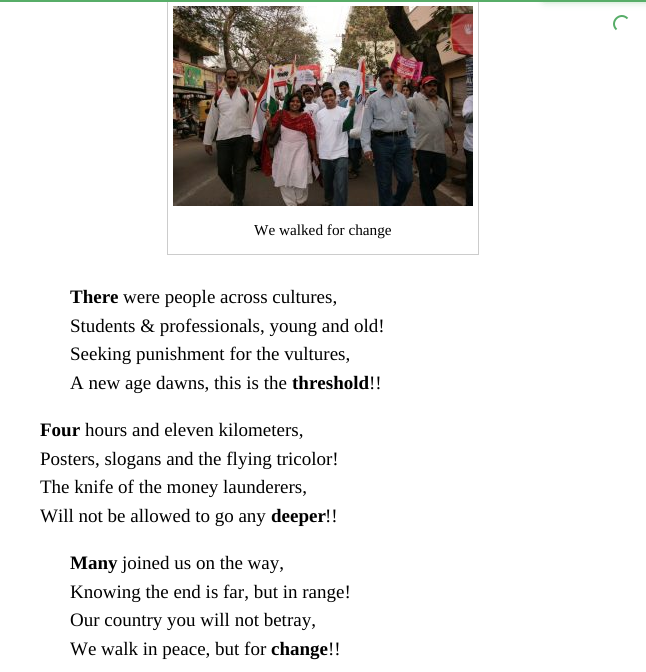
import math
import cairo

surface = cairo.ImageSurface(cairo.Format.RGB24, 646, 672)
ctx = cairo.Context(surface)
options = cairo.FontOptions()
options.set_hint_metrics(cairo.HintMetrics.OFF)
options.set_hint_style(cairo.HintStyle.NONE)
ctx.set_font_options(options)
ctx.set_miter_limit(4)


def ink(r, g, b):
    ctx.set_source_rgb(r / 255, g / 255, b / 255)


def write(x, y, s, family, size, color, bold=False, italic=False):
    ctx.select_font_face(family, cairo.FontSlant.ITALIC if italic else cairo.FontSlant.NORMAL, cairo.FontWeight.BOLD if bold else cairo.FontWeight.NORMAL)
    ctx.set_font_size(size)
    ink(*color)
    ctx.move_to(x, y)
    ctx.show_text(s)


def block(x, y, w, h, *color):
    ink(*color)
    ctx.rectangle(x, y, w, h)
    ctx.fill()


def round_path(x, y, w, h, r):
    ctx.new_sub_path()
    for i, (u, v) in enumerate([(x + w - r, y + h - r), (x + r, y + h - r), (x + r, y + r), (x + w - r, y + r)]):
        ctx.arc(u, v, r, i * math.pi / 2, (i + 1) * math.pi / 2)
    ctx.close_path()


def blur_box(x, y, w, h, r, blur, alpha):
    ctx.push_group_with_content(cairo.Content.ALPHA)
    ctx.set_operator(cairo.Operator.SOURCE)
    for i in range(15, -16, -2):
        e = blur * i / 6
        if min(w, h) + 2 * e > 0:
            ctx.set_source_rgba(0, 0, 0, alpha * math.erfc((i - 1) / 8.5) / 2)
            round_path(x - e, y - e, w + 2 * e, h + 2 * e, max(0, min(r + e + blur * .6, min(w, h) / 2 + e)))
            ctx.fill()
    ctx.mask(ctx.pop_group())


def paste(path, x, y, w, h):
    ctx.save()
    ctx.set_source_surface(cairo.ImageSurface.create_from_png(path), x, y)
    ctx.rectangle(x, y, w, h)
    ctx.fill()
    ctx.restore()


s1 = dict(family="Liberation Serif", size=15.25, color=(0, 0, 0))
s2 = dict(family="Liberation Serif", size=19, color=(0, 0, 0), bold=True)
s3 = dict(family="Liberation Serif", size=19, color=(0, 0, 0))

ink(255, 255, 255)
ctx.paint()
ctx.rectangle(167.5, 0.5, 311, 254)
ink(204, 204, 204)
ctx.set_line_width(1)
ctx.stroke()
block(0, 0, 646, 2, 87, 173, 104)
ink(87, 173, 104)
blur_box(546, -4, 100, 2, 0, 5, 1)
ctx.new_path()
ctx.move_to(616.5, 29.5)
ctx.curve_to(609, 22, 620, 11, 627.5, 18.5)
ink(87, 173, 104)
ctx.set_line_width(2)
ctx.stroke()
paste("pic1.png", 173, 6, 300, 200)
write(254, 235, "We walked for change", **s1)
write(70, 303, "There", **s2)
write(123, 303, "were people across cultures,", **s3)
write(70, 332, "Students & professionals, young and old!", **s3)
write(70, 360, "Seeking punishment for the vultures,", **s3)
write(70, 389, "A new age dawns, this is the", **s3)
write(292, 389, "threshold", **s2)
write(369, 389, "!!", **s3)
write(40, 436, "Four", **s2)
write(85, 436, "hours and eleven kilometers,", **s3)
write(40, 465, "Posters, slogans and the flying tricolor!", **s3)
write(40, 493, "The knife of the money launderers,", **s3)
write(40, 522, "Will not be allowed to go any", **s3)
write(271, 522, "deeper", **s2)
write(325, 522, "!!", **s3)
write(70, 569, "Many", **s2)
write(122, 569, "joined us on the way,", **s3)
write(70, 598, "Knowing the end is far, but in range!", **s3)
write(70, 626, "Our country you will not betray,", **s3)
write(70, 655, "We walk in peace, but for", **s3)
write(271, 655, "change", **s2)
write(328, 655, "!!", **s3)
surface.write_to_png("screenshot.png")
